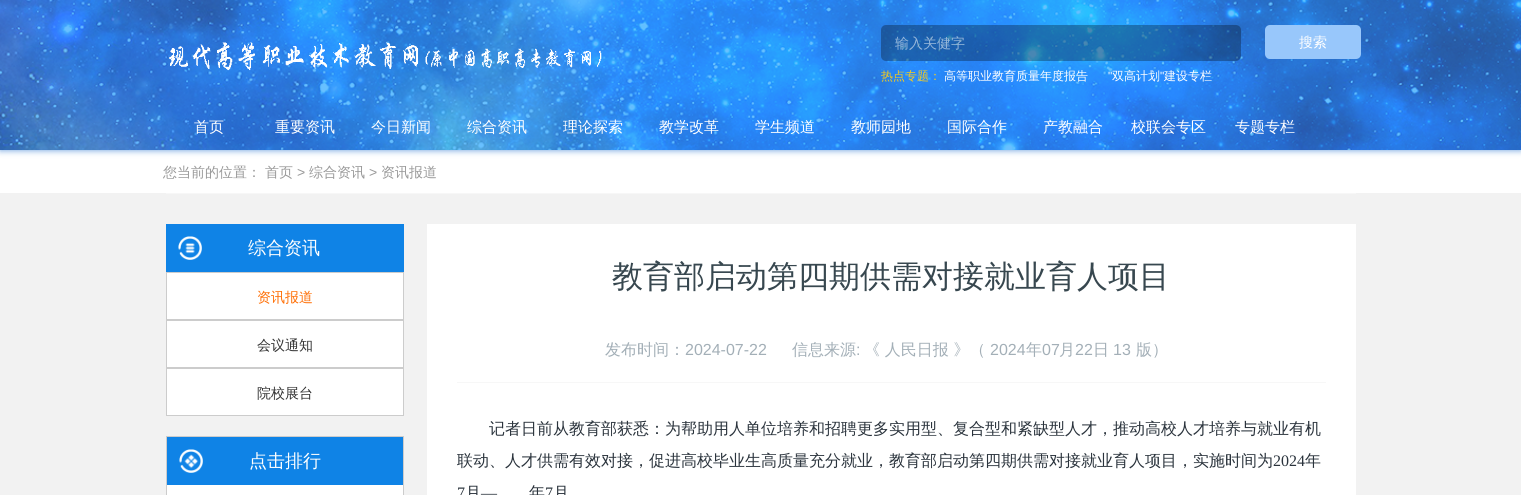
import math
import cairo

surface = cairo.ImageSurface(cairo.Format.RGB24, 1521, 495)
ctx = cairo.Context(surface)
options = cairo.FontOptions()
options.set_hint_metrics(cairo.HintMetrics.OFF)
options.set_hint_style(cairo.HintStyle.NONE)
ctx.set_font_options(options)
ctx.set_miter_limit(4)


def ink(r, g, b):
    ctx.set_source_rgb(r / 255, g / 255, b / 255)


def write(x, y, s, family, size, color, bold=False, italic=False):
    ctx.select_font_face(family, cairo.FontSlant.ITALIC if italic else cairo.FontSlant.NORMAL, cairo.FontWeight.BOLD if bold else cairo.FontWeight.NORMAL)
    ctx.set_font_size(size)
    ink(*color)
    ctx.move_to(x, y)
    ctx.show_text(s)


def block(x, y, w, h, *color):
    ink(*color)
    ctx.rectangle(x, y, w, h)
    ctx.fill()


def round_path(x, y, w, h, r):
    ctx.new_sub_path()
    for i, (u, v) in enumerate([(x + w - r, y + h - r), (x + r, y + h - r), (x + r, y + r), (x + w - r, y + r)]):
        ctx.arc(u, v, r, i * math.pi / 2, (i + 1) * math.pi / 2)
    ctx.close_path()


def blur_box(x, y, w, h, r, blur, alpha):
    ctx.push_group_with_content(cairo.Content.ALPHA)
    ctx.set_operator(cairo.Operator.SOURCE)
    for i in range(15, -16, -2):
        e = blur * i / 6
        if min(w, h) + 2 * e > 0:
            ctx.set_source_rgba(0, 0, 0, alpha * math.erfc((i - 1) / 8.5) / 2)
            round_path(x - e, y - e, w + 2 * e, h + 2 * e, max(0, min(r + e + blur * .6, min(w, h) / 2 + e)))
            ctx.fill()
    ctx.mask(ctx.pop_group())


def paste(path, x, y, w, h):
    ctx.save()
    ctx.set_source_surface(cairo.ImageSurface.create_from_png(path), x, y)
    ctx.rectangle(x, y, w, h)
    ctx.fill()
    ctx.restore()


s1 = dict(family="WenQuanYi Zen Hei Medium", size=14, color=(151, 183, 218))
s2 = dict(family="WenQuanYi Zen Hei Medium", size=14, color=(255, 255, 255))
s3 = dict(family="WenQuanYi Zen Hei Medium", size=12, color=(245, 202, 30))
s4 = dict(family="WenQuanYi Zen Hei Medium", size=12, color=(255, 255, 255))
s5 = dict(family="Liberation Sans", size=12, color=(255, 255, 255))
s6 = dict(family="WenQuanYi Zen Hei Medium", size=15, color=(255, 255, 255))
s7 = dict(family="WenQuanYi Zen Hei Medium", size=14, color=(153, 153, 153))
s8 = dict(family="Liberation Sans", size=14, color=(153, 153, 153))
s9 = dict(family="WenQuanYi Zen Hei Medium", size=18, color=(255, 255, 255))
s10 = dict(family="WenQuanYi Zen Hei Medium", size=14, color=(255, 111, 6))
s11 = dict(family="WenQuanYi Zen Hei Medium", size=14, color=(51, 51, 51))
s12 = dict(family="WenQuanYi Zen Hei Medium", size=31, color=(55, 71, 79))
s13 = dict(family="WenQuanYi Zen Hei Medium", size=16, color=(163, 175, 183))
s14 = dict(family="Liberation Sans", size=16, color=(163, 175, 183))
s15 = dict(family="WenQuanYi Zen Hei Medium", size=16, color=(42, 51, 60))
s16 = dict(family="Liberation Serif", size=16, color=(42, 51, 60))

ink(242, 242, 242)
ctx.paint()
block(0, 150, 1521, 43, 255, 255, 255)
ink(37, 115, 207)
blur_box(0, 1, 1521, 150, 0, 3, 0.57)
paste("pic1.png", 0, 0, 1521, 150)
paste("pic2.png", 169, 42, 433, 29)
ctx.set_source_rgba(0, 0, 0, 0.3)
round_path(881, 25, 360, 36, 5)
ctx.fill()
ctx.save()
ctx.rectangle(895, 35, 344, 18)
ctx.clip()
write(895, 48, "输入关健字", **s1)
ctx.restore()
ink(152, 199, 251)
round_path(1265, 25, 96, 34, 5)
ctx.fill()
write(1299, 47, "搜索", **s2)
write(881, 80, "热点专题：", **s3)
write(944, 80, "高等职业教育质量年度报告", **s4)
write(1108, 80, "\"", **s5)
write(1112, 80, "双高计划", **s4)
write(1160, 80, "\"", **s5)
write(1164, 80, "建设专栏", **s4)
write(194, 132, "首页", **s6)
write(275, 132, "重要资讯", **s6)
write(371, 132, "今日新闻", **s6)
write(467, 132, "综合资讯", **s6)
write(563, 132, "理论探索", **s6)
write(659, 132, "教学改革", **s6)
write(755, 132, "学生频道", **s6)
write(851, 132, "教师园地", **s6)
write(947, 132, "国际合作", **s6)
write(1043, 132, "产教融合", **s6)
write(1131, 132, "校联会专区", **s6)
write(1235, 132, "专题专栏", **s6)
write(163, 177, "您当前的位置：", **s7)
write(265, 177, "首页", **s7)
write(297, 177, ">", **s8)
write(309, 177, "综合资讯", **s7)
write(369, 177, ">", **s8)
write(381, 177, "资讯报道", **s7)
block(166, 193, 1190, 1, 247, 247, 247)
block(167, 273, 236, 142, 255, 255, 255)
block(166, 224, 238, 48, 15, 131, 230)
paste("pic3.png", 178, 236, 24, 24)
write(248, 254, "综合资讯", **s9)
ctx.rectangle(166.5, 272.5, 237, 47)
ink(204, 204, 204)
ctx.set_line_width(1)
ctx.stroke()
write(257, 302, "资讯报道", **s10)
ctx.rectangle(166.5, 320.5, 237, 47)
ink(204, 204, 204)
ctx.stroke()
write(257, 350, "会议通知", **s11)
ctx.rectangle(166.5, 368.5, 237, 47)
ink(204, 204, 204)
ctx.stroke()
write(257, 398, "院校展台", **s11)
ctx.rectangle(166.5, 436.5, 237, 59)
ink(204, 204, 204)
ctx.stroke()
block(167, 485, 236, 10, 255, 255, 255)
block(167, 437, 236, 48, 15, 131, 230)
paste("pic4.png", 179, 449, 24, 24)
write(249, 467, "点击排行", **s9)
block(427, 224, 929, 271, 255, 255, 255)
write(612, 287, "教育部启动第四期供需对接就业育人项目", **s12)
block(457, 382, 869, 1, 247, 247, 247)
write(605, 355, "发布时间：", **s13)
write(685, 355, "2024-07-22", **s14)
write(792, 355, "信息来源", **s13)
write(856, 355, ":", **s14)
write(864, 355, "《 人民日报 》（", **s13)
write(990, 355, "2024", **s14)
write(1026, 355, "年", **s13)
write(1042, 355, "07", **s14)
write(1059, 355, "月", **s13)
write(1075, 355, "22", **s14)
write(1093, 355, "日", **s13)
write(1113, 355, "13", **s14)
write(1136, 355, "版）", **s13)
write(489, 434, "记者日前从教育部获悉：为帮助用人单位培养和招聘更多实用型、复合型和紧缺型人才，推动高校人才培养与就业有机", **s15)
write(457, 466, "联动、人才供需有效对接，促进高校毕业生高质量充分就业，教育部启动第四期供需对接就业育人项目，实施时间为", **s15)
write(1273, 466, "2024", **s16)
write(1305, 466, "年", **s15)
write(457, 498, "7", **s16)
write(465, 498, "月", **s15)
write(481, 498, "—", **s16)
write(529, 498, "年", **s15)
write(545, 498, "7", **s16)
write(553, 498, "月", **s15)
surface.write_to_png("screenshot.png")
